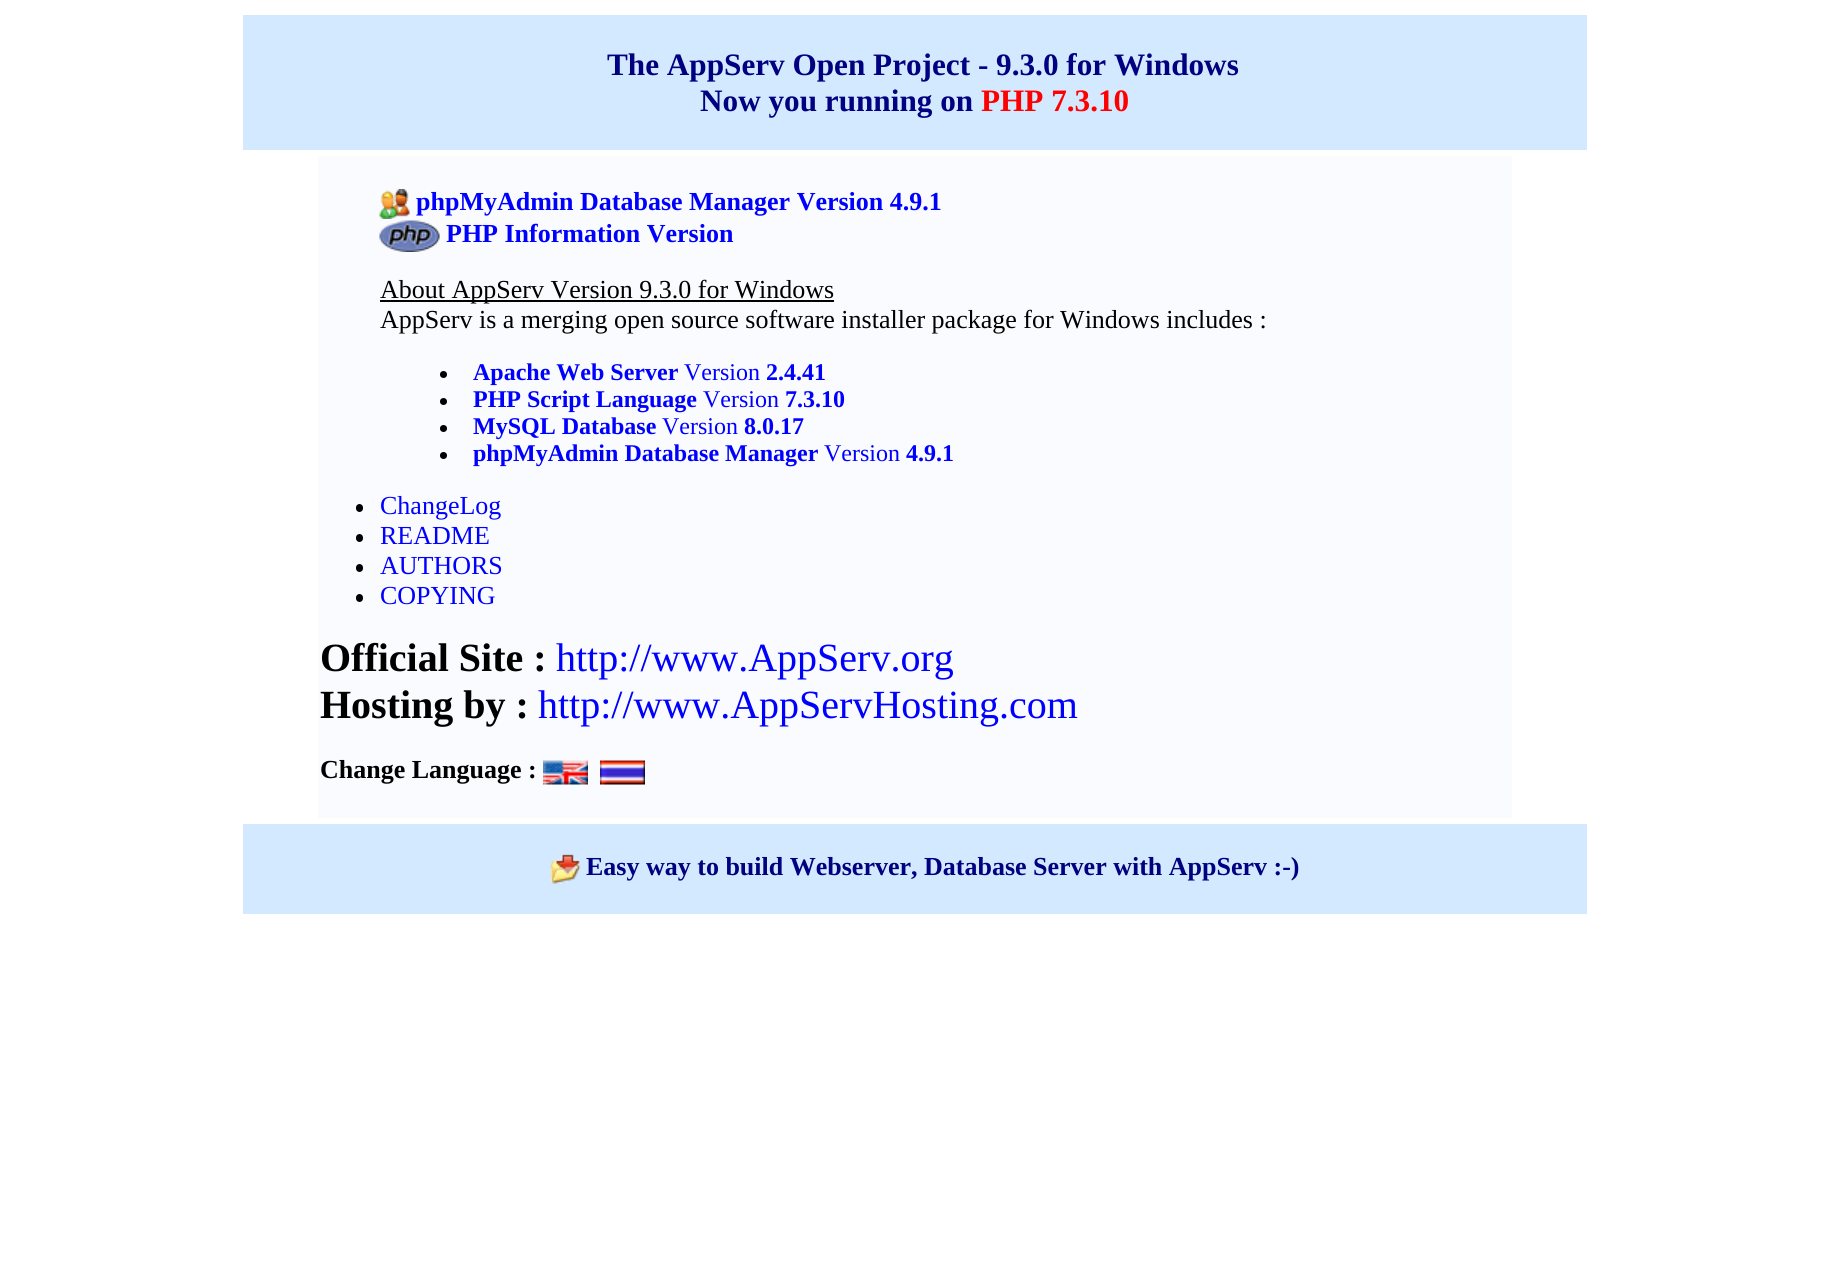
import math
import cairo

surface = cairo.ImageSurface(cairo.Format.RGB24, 1830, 1288)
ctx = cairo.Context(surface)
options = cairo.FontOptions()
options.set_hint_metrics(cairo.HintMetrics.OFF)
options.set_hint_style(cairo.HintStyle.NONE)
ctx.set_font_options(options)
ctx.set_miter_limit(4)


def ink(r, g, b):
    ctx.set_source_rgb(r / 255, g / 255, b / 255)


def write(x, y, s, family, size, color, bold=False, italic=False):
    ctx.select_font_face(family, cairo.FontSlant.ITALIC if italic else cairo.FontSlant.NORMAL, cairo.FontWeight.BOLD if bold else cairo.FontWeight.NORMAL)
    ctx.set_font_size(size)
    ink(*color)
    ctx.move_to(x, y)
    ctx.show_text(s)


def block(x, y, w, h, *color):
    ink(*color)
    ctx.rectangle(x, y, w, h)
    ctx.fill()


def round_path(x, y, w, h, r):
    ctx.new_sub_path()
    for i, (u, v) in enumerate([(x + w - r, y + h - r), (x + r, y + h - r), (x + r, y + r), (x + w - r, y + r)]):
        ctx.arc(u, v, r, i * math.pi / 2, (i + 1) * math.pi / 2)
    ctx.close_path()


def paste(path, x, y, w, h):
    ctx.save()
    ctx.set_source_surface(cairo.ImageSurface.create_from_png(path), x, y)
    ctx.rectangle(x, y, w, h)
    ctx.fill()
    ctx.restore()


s1 = dict(family="Liberation Serif", size=31.2, color=(0, 0, 128), bold=True)
s2 = dict(family="Liberation Serif", size=31.2, color=(255, 0, 0), bold=True)
s3 = dict(family="Liberation Serif", size=26, color=(0, 0, 255), bold=True)
s4 = dict(family="Liberation Serif", size=26, color=(0, 0, 0))
s5 = dict(family="Liberation Serif", size=24, color=(0, 0, 255), bold=True)
s6 = dict(family="Liberation Serif", size=24, color=(0, 0, 255))
s7 = dict(family="Liberation Serif", size=26, color=(0, 0, 255))
s8 = dict(family="Liberation Serif", size=40, color=(0, 0, 0), bold=True)
s9 = dict(family="Liberation Serif", size=40, color=(0, 0, 255))
s10 = dict(family="Liberation Serif", size=26, color=(0, 0, 0), bold=True)
s11 = dict(family="Liberation Serif", size=26, color=(0, 0, 128), bold=True)

ink(255, 255, 255)
ctx.paint()
block(243, 15, 1344, 135, 210, 233, 255)
write(607, 75, "The AppServ Open Project - 9.3.0 for Windows", **s1)
write(700, 111, "Now you running on", **s1)
write(981, 111, "PHP 7.3.10", **s2)
block(318, 156, 1194, 662, 249, 251, 255)
paste("pic1.png", 379, 189, 31, 30)
write(416, 210, "phpMyAdmin Database Manager Version 4.9.1", **s3)
paste("pic2.png", 379, 220, 61, 32)
write(446, 242, "PHP Information Version", **s3)
block(380, 300, 454, 2, 0, 0, 0)
write(380, 298, "About AppServ Version 9.3.0 for Windows", **s4)
write(380, 328, "AppServ is a merging open source software installer package for Windows includes :", **s4)
ctx.new_path()
ctx.arc(443.5, 374.5, 3.5, 0, 2 * math.pi)
ctx.fill()
write(473, 380, "Apache Web Server", **s5)
write(684, 380, "Version", **s6)
write(766, 380, "2.4.41", **s5)
ink(0, 0, 0)
ctx.new_path()
ctx.arc(443.5, 401.5, 3.5, 0, 2 * math.pi)
ctx.fill()
write(473, 407, "PHP Script Language", **s5)
write(703, 407, "Version", **s6)
write(785, 407, "7.3.10", **s5)
ink(0, 0, 0)
ctx.new_path()
ctx.arc(443.5, 428.5, 3.5, 0, 2 * math.pi)
ctx.fill()
write(473, 434, "MySQL Database", **s5)
write(662, 434, "Version", **s6)
write(744, 434, "8.0.17", **s5)
ink(0, 0, 0)
ctx.new_path()
ctx.arc(443.5, 455.5, 3.5, 0, 2 * math.pi)
ctx.fill()
write(473, 461, "phpMyAdmin Database Manager", **s5)
write(824, 461, "Version", **s6)
write(906, 461, "4.9.1", **s5)
ink(0, 0, 0)
round_path(356, 504, 7, 8, 3.5)
ctx.fill()
write(380, 514, "ChangeLog", **s7)
ink(0, 0, 0)
round_path(356, 534, 7, 8, 3.5)
ctx.fill()
write(380, 544, "README", **s7)
ink(0, 0, 0)
round_path(356, 564, 7, 8, 3.5)
ctx.fill()
write(380, 574, "AUTHORS", **s7)
ink(0, 0, 0)
round_path(356, 594, 7, 8, 3.5)
ctx.fill()
write(380, 604, "COPYING", **s7)
write(320, 671, "Official Site :", **s8)
write(556, 671, "http://www.AppServ.org", **s9)
write(320, 718, "Hosting by :", **s8)
write(538, 718, "http://www.AppServHosting.com", **s9)
write(320, 778, "Change Language :", **s10)
paste("pic3.png", 543, 760, 45, 25)
paste("pic4.png", 600, 760, 45, 25)
block(243, 824, 1344, 90, 210, 233, 255)
paste("pic5.png", 550, 854, 31, 30)
write(586, 875, "Easy way to build Webserver, Database Server with AppServ :-)", **s11)
surface.write_to_png("screenshot.png")
